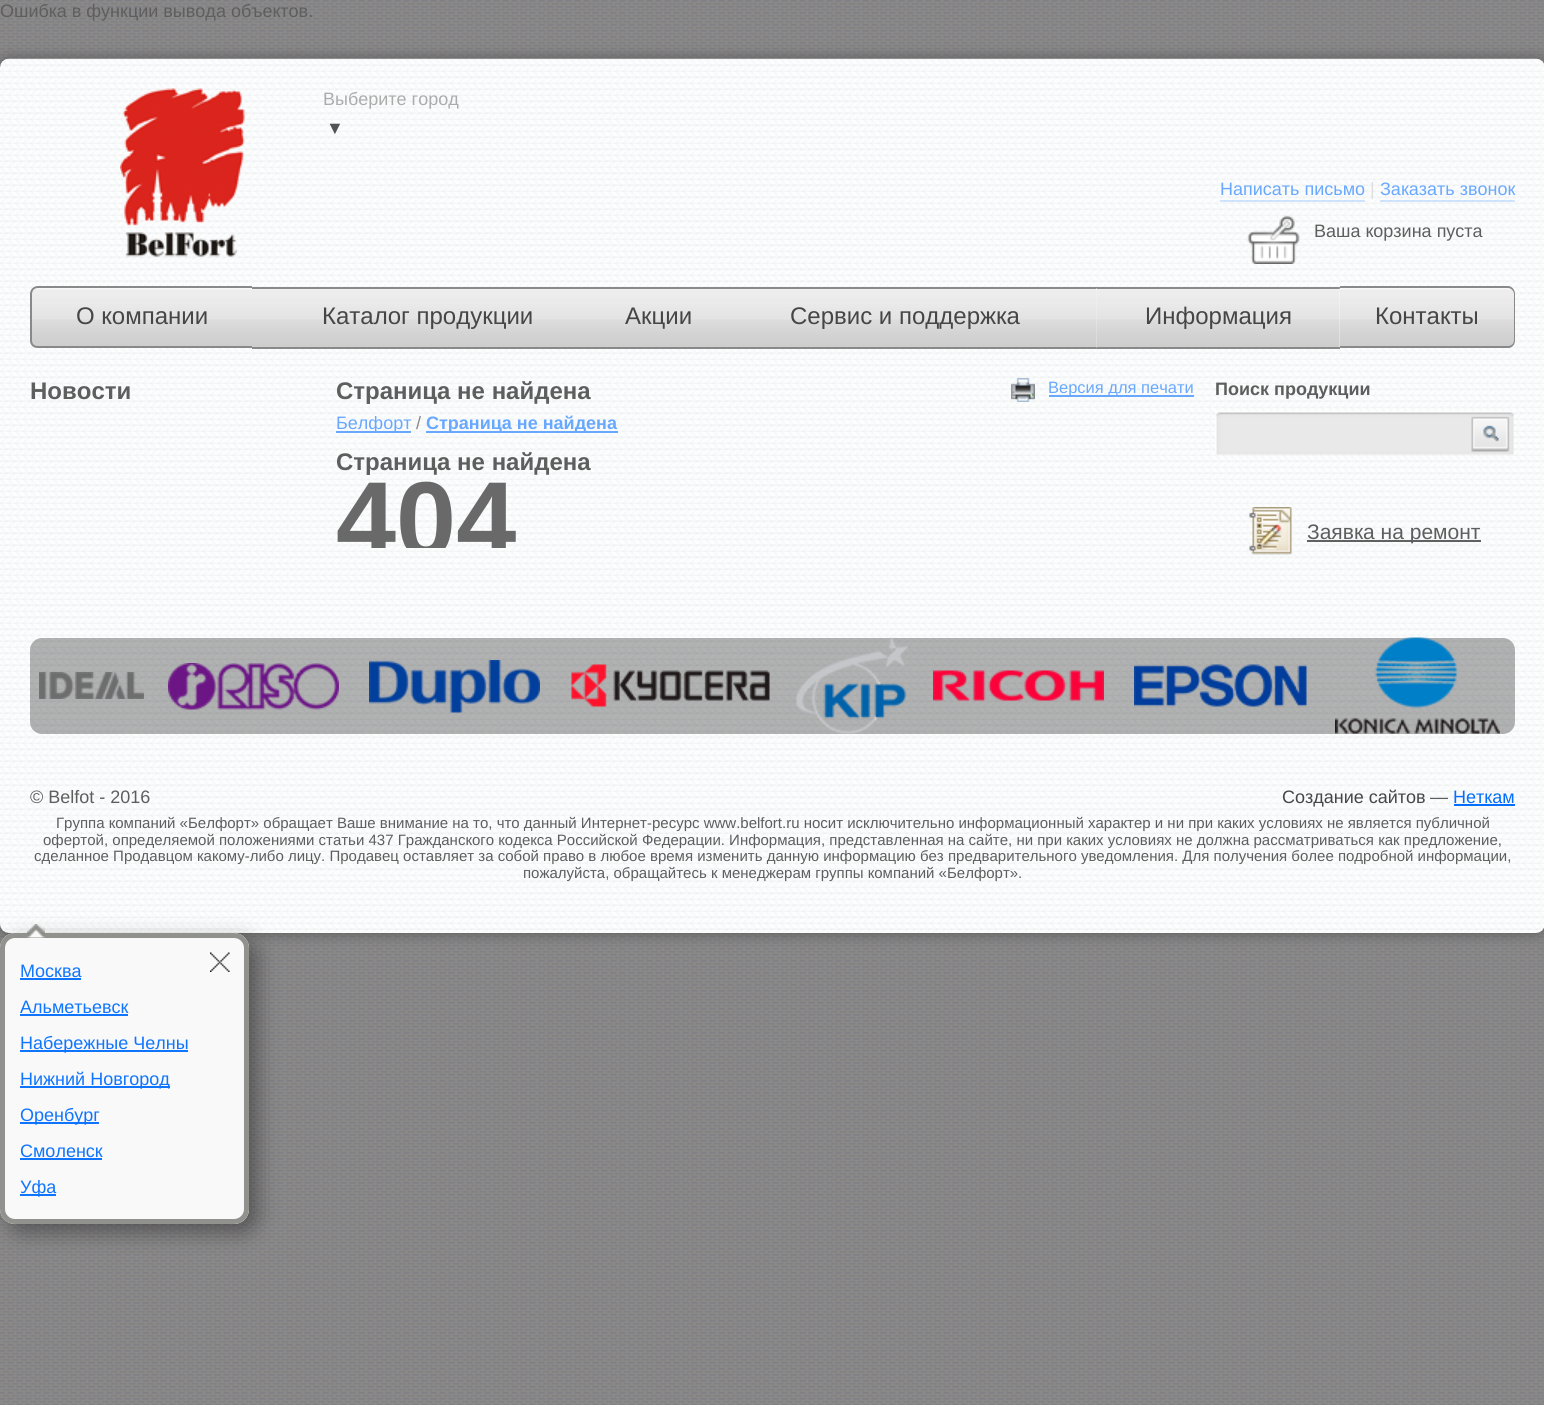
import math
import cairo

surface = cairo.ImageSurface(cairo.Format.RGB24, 1544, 1405)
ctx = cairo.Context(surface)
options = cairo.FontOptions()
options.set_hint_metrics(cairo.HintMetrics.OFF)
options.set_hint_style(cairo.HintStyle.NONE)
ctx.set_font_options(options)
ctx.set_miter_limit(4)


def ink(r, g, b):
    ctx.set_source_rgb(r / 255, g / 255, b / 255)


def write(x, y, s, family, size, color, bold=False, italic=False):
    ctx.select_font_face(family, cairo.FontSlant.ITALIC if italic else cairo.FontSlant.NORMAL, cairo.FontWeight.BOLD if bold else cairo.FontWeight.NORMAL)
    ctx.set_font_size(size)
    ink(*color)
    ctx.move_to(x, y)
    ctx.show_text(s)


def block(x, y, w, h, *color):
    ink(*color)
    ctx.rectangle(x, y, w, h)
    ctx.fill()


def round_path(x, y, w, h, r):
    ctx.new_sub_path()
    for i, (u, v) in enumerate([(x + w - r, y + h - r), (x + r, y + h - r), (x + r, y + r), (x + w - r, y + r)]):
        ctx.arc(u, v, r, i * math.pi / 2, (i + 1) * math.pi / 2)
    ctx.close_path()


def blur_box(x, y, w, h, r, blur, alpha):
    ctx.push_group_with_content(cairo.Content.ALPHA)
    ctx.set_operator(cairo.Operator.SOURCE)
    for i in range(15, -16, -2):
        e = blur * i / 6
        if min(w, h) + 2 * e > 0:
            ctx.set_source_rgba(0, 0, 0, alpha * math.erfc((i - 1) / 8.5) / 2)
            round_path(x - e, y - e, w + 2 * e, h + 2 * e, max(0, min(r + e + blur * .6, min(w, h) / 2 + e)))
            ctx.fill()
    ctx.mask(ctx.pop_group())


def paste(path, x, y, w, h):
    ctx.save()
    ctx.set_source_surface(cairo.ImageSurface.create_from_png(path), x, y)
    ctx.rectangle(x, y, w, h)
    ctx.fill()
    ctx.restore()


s1 = dict(family="Liberation Sans", size=18, color=(94, 94, 94))
s2 = dict(family="Liberation Sans", size=18, color=(173, 172, 172))
s3 = dict(family="Liberation Sans", size=18, color=(83, 83, 83))
s4 = dict(family="Liberation Sans", size=18, color=(104, 168, 255))
s5 = dict(family="Liberation Sans", size=18, color=(221, 221, 221))
s6 = dict(family="Liberation Sans", size=24, color=(70, 70, 70))
s7 = dict(family="Liberation Sans", size=24, color=(94, 94, 94), bold=True)
s8 = dict(family="Liberation Sans", size=16.5, color=(104, 168, 255))
s9 = dict(family="Liberation Sans", size=18, color=(136, 136, 136))
s10 = dict(family="Liberation Sans", size=18, color=(104, 168, 255), bold=True)
s11 = dict(family="Liberation Sans", size=108, color=(105, 105, 105), bold=True)
s12 = dict(family="Liberation Sans", size=18, color=(94, 94, 94), bold=True)
s13 = dict(family="Liberation Sans", size=21, color=(94, 94, 94))
s14 = dict(family="Liberation Sans", size=15, color=(94, 94, 94))
s15 = dict(family="Liberation Sans", size=18, color=(70, 70, 70))
s16 = dict(family="Liberation Sans", size=18, color=(3, 110, 255))
s17 = dict(family="Liberation Sans", size=18, color=(15, 117, 255))

ink(255, 255, 255)
ctx.paint()
paste("pic1.png", 0, 0, 1544, 1405)
write(0, 17, "Ошибка в функции вывода объектов.", **s1)
ink(85, 85, 85)
blur_box(0, 59, 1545, 874, 9, 7.5, 1)
paste("pic2.png", 0, 58, 1544, 875)
paste("pic3.png", 120, 88, 125, 169)
write(323, 105, "Выберите город", **s2)
write(326, 134, "▼", **s3)
write(1220, 195, "Написать письмо", **s4)
ctx.set_source_rgba(0.408, 0.659, 1, 0.3)
ctx.rectangle(1220, 200, 145, 2)
ctx.fill()
write(1370, 195, "|", **s5)
write(1380, 195, "Заказать звонок", **s4)
ctx.set_source_rgba(0.408, 0.659, 1, 0.3)
ctx.rectangle(1380, 200, 135, 2)
ctx.fill()
paste("pic4.png", 1247, 215, 53, 49)
write(1314, 237, "Ваша корзина пуста", **s1)
paste("pic5.png", 30, 288, 222, 60)
ink(137, 137, 137)
ctx.set_fill_rule(cairo.FillRule.EVEN_ODD)
ctx.new_path()
ctx.move_to(38, 286)
ctx.line_to(252, 286)
ctx.line_to(252, 348)
ctx.line_to(38, 348)
ctx.curve_to(33, 348, 30, 345, 30, 340)
ctx.line_to(30, 294)
ctx.curve_to(30, 290, 33, 286, 38, 286)
ctx.close_path()
ctx.move_to(38, 288)
ctx.line_to(252, 288)
ctx.line_to(252, 346)
ctx.line_to(38, 346)
ctx.curve_to(34, 346, 32, 344, 32, 340)
ctx.line_to(32, 294)
ctx.curve_to(32, 291, 34, 288, 38, 288)
ctx.close_path()
ctx.fill()
write(76, 324, "О компании", **s6)
paste("pic6.png", 252, 289, 351, 58)
block(252, 287, 845, 2, 137, 137, 137)
block(252, 347, 845, 2, 137, 137, 137)
write(322, 324, "Каталог продукции", **s6)
paste("pic7.png", 603, 289, 111, 58)
write(625, 324, "Акции", **s6)
paste("pic8.png", 714, 289, 383, 58)
write(790, 324, "Сервис и поддержка", **s6)
paste("pic9.png", 1096, 288, 244, 60)
block(1097, 287, 243, 2, 137, 137, 137)
block(1097, 347, 243, 2, 137, 137, 137)
write(1145, 324, "Информация", **s6)
paste("pic10.png", 1339, 288, 176, 60)
ink(137, 137, 137)
ctx.new_path()
ctx.move_to(1340, 286)
ctx.line_to(1508, 286)
ctx.curve_to(1512, 286, 1515, 290, 1515, 294)
ctx.line_to(1515, 340)
ctx.curve_to(1515, 345, 1512, 348, 1508, 348)
ctx.line_to(1340, 348)
ctx.close_path()
ctx.move_to(1340, 288)
ctx.line_to(1508, 288)
ctx.curve_to(1511, 288, 1514, 291, 1514, 294)
ctx.line_to(1514, 340)
ctx.curve_to(1514, 344, 1511, 346, 1508, 346)
ctx.line_to(1340, 346)
ctx.close_path()
ctx.fill()
write(1375, 324, "Контакты", **s6)
write(30, 399, "Новости", **s7)
write(336, 399, "Страница не найдена", **s7)
paste("pic11.png", 1011, 378, 24, 24)
block(1049, 395, 145, 2, 104, 168, 255)
write(1048, 393, "Версия для печати", **s8)
block(336, 431, 75, 2, 104, 168, 255)
write(336, 429, "Белфорт", **s4)
write(416, 429, "/", **s9)
block(426, 431, 192, 2, 104, 168, 255)
write(426, 429, "Страница не найдена", **s10)
write(336, 470, "Страница не найдена", **s7)
ctx.save()
ctx.set_fill_rule(cairo.FillRule.WINDING)
ctx.rectangle(315, 378, 900, 170)
ctx.clip()
write(336, 557, "404", **s11)
ctx.restore()
write(1215, 395, "Поиск продукции", **s12)
paste("pic12.png", 1215, 411, 299, 44)
paste("pic13.png", 1249, 507, 43, 48)
block(1307, 540, 174, 2, 97, 97, 97)
write(1307, 539, "Заявка на ремонт", **s13)
ctx.set_source_rgba(0, 0, 0, 0.3)
round_path(30, 638, 1485, 96, 12)
ctx.fill()
paste("pic14.png", 39, 672, 105, 27)
paste("pic15.png", 168, 663, 171, 47)
paste("pic16.png", 369, 660, 171, 53)
paste("pic17.png", 571, 664, 199, 43)
paste("pic18.png", 796, 637, 112, 97)
paste("pic19.png", 933, 670, 171, 31)
paste("pic20.png", 1134, 664, 173, 43)
paste("pic21.png", 1335, 637, 165, 97)
write(30, 803, "© Belfot - 2016", **s1)
write(56, 828, "Группа компаний «Белфорт» обращает Ваше внимание на то, что данный Интернет-ресурс www.belfort.ru носит исключительно информационный характер и ни при каких условиях не является публичной", **s14)
write(43, 845, "офертой, определяемой положениями статьи 437 Гражданского кодекса Российской Федерации. Информация, представленная на сайте, ни при каких условиях не должна рассматриваться как предложение,", **s14)
write(34, 861, "сделанное Продавцом какому-либо лицу. Продавец оставляет за собой право в любое время изменить данную информацию без предварительного уведомления. Для получения более подробной информации,", **s14)
write(523, 878, "пожалуйста, обращайтесь к менеджерам группы компаний «Белфорт».", **s14)
write(1282, 803, "Создание сайтов", **s15)
write(1430, 803, "—", **s1)
write(1453, 803, "Неткам", **s16)
block(1454, 804, 61, 2, 3, 110, 255)
ctx.save()
ctx.new_path()
ctx.move_to(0, 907)
ctx.line_to(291, 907)
ctx.line_to(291, 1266)
ctx.line_to(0, 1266)
ctx.close_path()
ctx.move_to(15, 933)
ctx.line_to(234, 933)
ctx.curve_to(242.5, 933, 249, 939.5, 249, 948)
ctx.line_to(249, 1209)
ctx.curve_to(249, 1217.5, 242.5, 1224, 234, 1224)
ctx.line_to(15, 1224)
ctx.curve_to(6.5, 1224, 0, 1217.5, 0, 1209)
ctx.line_to(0, 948)
ctx.curve_to(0, 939.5, 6.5, 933, 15, 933)
ctx.close_path()
ctx.clip()
ink(0, 0, 0)
blur_box(8, 941, 249, 291, 15, 11, 0.38)
ctx.restore()
ctx.set_source_rgba(1, 1, 1, 0.95)
round_path(0, 933, 249, 291, 15)
ctx.fill()
round_path(2.5, 935.5, 244, 286, 12.5)
ctx.set_source_rgba(0.549, 0.549, 0.533, 0.95)
ctx.set_line_width(5)
ctx.stroke()
paste("pic22.png", 27, 924, 18, 14)
paste("pic23.png", 210, 952, 20, 20)
write(20, 977, "Москва", **s17)
block(20, 978, 61, 2, 15, 117, 255)
write(20, 1013, "Альметьевск", **s17)
block(20, 1014, 108, 2, 15, 117, 255)
block(20, 1050, 168, 2, 15, 117, 255)
write(20, 1049, "Набережные Челны", **s17)
block(20, 1086, 150, 2, 15, 117, 255)
write(20, 1085, "Нижний Новгород", **s17)
block(20, 1122, 79, 2, 15, 117, 255)
write(20, 1121, "Оренбург", **s17)
write(20, 1157, "Смоленск", **s17)
block(20, 1158, 82, 2, 15, 117, 255)
block(20, 1194, 36, 2, 15, 117, 255)
write(20, 1193, "Уфа", **s17)
surface.write_to_png("screenshot.png")
